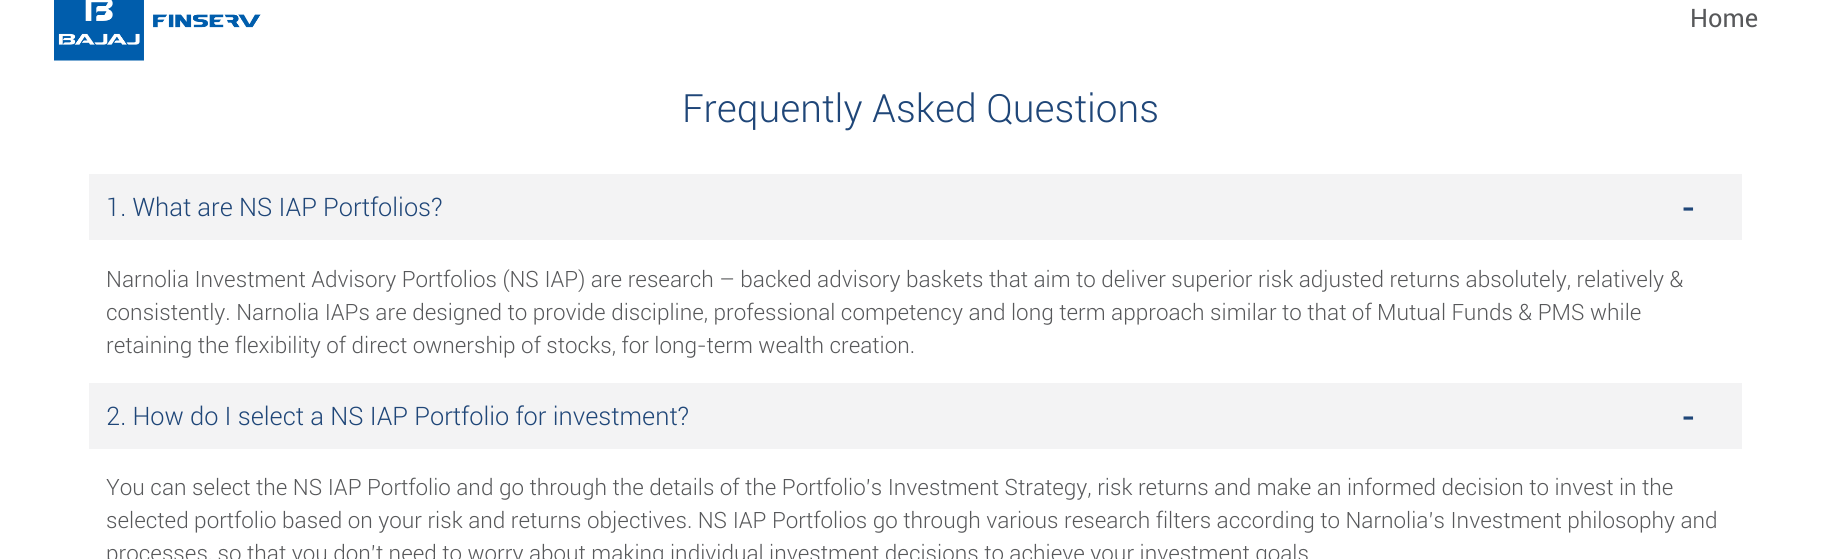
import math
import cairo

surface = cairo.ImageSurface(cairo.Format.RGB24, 1840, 559)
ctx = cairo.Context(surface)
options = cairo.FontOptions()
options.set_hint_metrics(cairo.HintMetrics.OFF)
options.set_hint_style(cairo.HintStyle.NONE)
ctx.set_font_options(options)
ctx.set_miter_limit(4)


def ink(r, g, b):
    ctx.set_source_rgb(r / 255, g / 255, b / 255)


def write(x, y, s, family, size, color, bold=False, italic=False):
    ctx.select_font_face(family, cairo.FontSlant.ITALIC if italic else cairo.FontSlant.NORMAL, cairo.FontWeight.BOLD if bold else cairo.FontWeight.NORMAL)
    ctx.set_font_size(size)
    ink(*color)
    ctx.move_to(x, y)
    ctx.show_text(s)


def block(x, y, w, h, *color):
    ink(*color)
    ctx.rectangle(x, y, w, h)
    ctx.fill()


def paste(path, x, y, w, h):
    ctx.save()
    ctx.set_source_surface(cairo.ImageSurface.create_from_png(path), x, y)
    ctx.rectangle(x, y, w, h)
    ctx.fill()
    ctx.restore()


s1 = dict(family="Roboto", size=25.5, color=(87, 88, 90))
s2 = dict(family="Roboto Light", size=39, color=(31, 70, 120))
s3 = dict(family="Roboto Light", size=25.5, color=(31, 70, 120))
s4 = dict(family="Roboto Medium", size=33, color=(31, 70, 120))
s5 = dict(family="Roboto Light", size=22.5, color=(87, 88, 90))

ink(255, 255, 255)
ctx.paint()
paste("pic1.png", 54, 0, 207, 61)
write(1690, 27, "Home", **s1)
write(682, 122, "Frequently Asked Questions", **s2)
block(89, 174, 1653, 66, 243, 243, 244)
write(106, 216, "1. What are NS IAP Portfolios?", **s3)
write(1681, 219, "-", **s4)
write(106, 287, "Narnolia Investment Advisory Portfolios (NS IAP) are research – backed advisory baskets that aim to deliver superior risk adjusted returns absolutely, relatively &", **s5)
write(106, 320, "consistently. Narnolia IAPs are designed to provide discipline, professional competency and long term approach similar to that of Mutual Funds & PMS while", **s5)
write(106, 353, "retaining the flexibility of direct ownership of stocks, for long-term wealth creation.", **s5)
block(89, 383, 1653, 66, 243, 243, 244)
write(106, 425, "2. How do I select a NS IAP Portfolio for investment?", **s3)
write(1681, 428, "-", **s4)
write(106, 495, "You can select the NS IAP Portfolio and go through the details of the Portfolio’s Investment Strategy, risk returns and make an informed decision to invest in the", **s5)
write(106, 528, "selected portfolio based on your risk and returns objectives. NS IAP Portfolios go through various research filters according to Narnolia’s Investment philosophy and", **s5)
write(106, 561, "processes, so that you don’t need to worry about making individual investment decisions to achieve your investment goals", **s5)
surface.write_to_png("screenshot.png")
